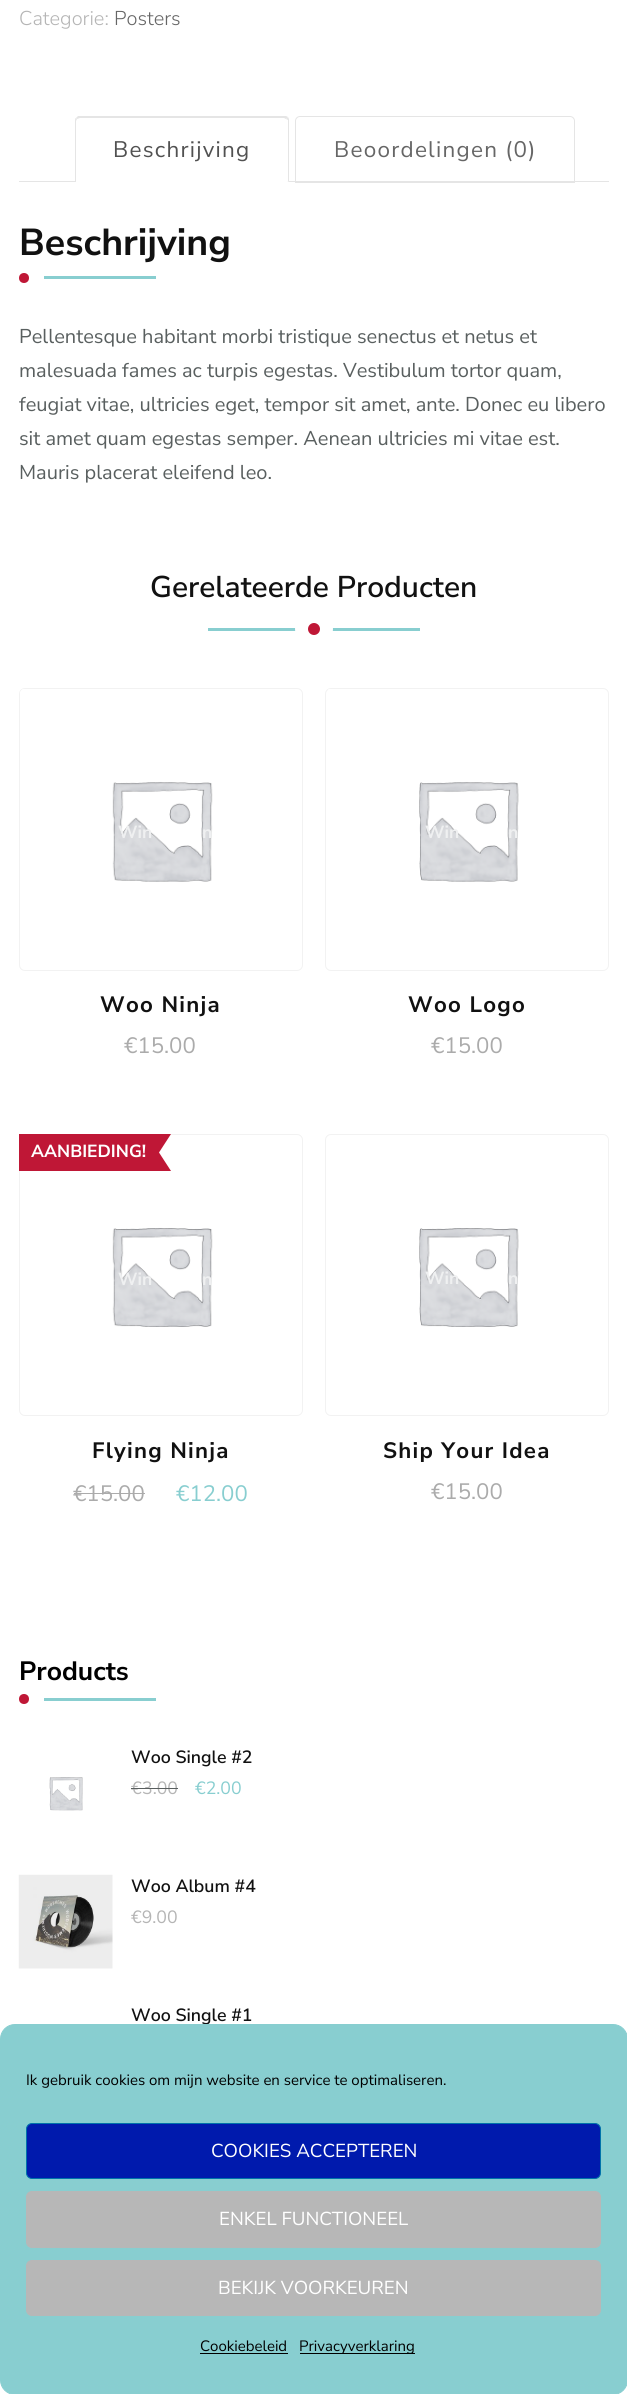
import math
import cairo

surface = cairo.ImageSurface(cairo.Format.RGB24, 627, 2394)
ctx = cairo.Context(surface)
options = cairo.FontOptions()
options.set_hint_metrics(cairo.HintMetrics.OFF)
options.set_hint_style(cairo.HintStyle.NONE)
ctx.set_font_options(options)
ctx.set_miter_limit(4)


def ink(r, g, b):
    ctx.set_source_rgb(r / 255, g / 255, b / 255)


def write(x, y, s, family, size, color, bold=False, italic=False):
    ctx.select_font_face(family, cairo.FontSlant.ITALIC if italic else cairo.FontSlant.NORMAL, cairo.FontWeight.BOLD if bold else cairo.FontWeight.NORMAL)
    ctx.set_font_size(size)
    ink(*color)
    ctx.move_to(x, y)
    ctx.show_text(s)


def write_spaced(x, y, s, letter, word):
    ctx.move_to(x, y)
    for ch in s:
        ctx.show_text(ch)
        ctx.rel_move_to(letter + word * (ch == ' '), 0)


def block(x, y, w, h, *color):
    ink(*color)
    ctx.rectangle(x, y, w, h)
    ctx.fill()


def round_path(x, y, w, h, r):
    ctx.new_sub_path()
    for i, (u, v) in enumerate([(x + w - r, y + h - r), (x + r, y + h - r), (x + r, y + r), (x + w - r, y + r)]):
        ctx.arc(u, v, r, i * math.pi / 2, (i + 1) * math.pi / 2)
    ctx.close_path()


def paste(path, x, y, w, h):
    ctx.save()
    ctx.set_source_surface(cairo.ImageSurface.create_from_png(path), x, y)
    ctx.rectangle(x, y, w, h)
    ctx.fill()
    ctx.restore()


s1 = dict(family="Nunito Sans Light", size=20, color=(181, 181, 181))
s2 = dict(family="Nunito Sans Light", size=20, color=(102, 102, 102))
s3 = dict(family="Nunito Sans", size=37.5, color=(17, 17, 17), bold=True)
s4 = dict(family="Nunito Sans", size=20, color=(89, 95, 95))
s5 = dict(family="Nunito Sans SemiBold", size=30, color=(17, 17, 17))
s6 = dict(family="Nunito Sans", size=17.5, color=(239, 240, 241), bold=True)
s7 = dict(family="Nunito Sans", size=22.25, color=(171, 171, 171))
s8 = dict(family="Nunito Sans", size=17.5, color=(255, 255, 255), bold=True)
s9 = dict(family="Nunito Sans", size=22.25, color=(136, 206, 208))
s10 = dict(family="Nunito Sans", size=26.5, color=(0, 0, 0), bold=True)
s11 = dict(family="Nunito Sans SemiBold", size=17.75, color=(17, 17, 17))
s12 = dict(family="Nunito Sans", size=17.75, color=(181, 181, 181))
s13 = dict(family="Nunito Sans", size=17.75, color=(136, 206, 208))
s14 = dict(family="Nunito Sans", size=15, color=(0, 0, 0))
s15 = dict(family="Nunito Sans", size=18.75, color=(255, 255, 255))

ink(255, 255, 255)
ctx.paint()
write(19, 25, "Categorie:", **s1)
write(114, 25, "Posters", **s2)
ctx.new_path()
ctx.move_to(300, 116.5)
ctx.line_to(570, 116.5)
ctx.curve_to(572.5, 116.5, 574.5, 118.5, 574.5, 121)
ctx.line_to(574.5, 182.5)
ctx.line_to(295.5, 182.5)
ctx.line_to(295.5, 121)
ctx.curve_to(295.5, 118.5, 297.5, 116.5, 300, 116.5)
ctx.close_path()
ink(229, 229, 229)
ctx.set_line_width(1)
ctx.stroke()
block(19, 181, 590, 1, 229, 229, 229)
ink(255, 255, 255)
ctx.new_path()
ctx.move_to(80, 116)
ctx.line_to(284, 116)
ctx.curve_to(287, 116, 289, 118, 289, 121)
ctx.line_to(289, 183)
ctx.line_to(75, 183)
ctx.line_to(75, 121)
ctx.curve_to(75, 118, 77, 116, 80, 116)
ctx.close_path()
ctx.fill()
ink(229, 229, 229)
ctx.new_path()
ctx.move_to(80, 118)
ctx.line_to(77, 119)
ctx.line_to(76, 118)
ctx.line_to(78, 116)
ctx.line_to(286, 116)
ctx.line_to(288, 117)
ctx.line_to(286, 119)
ctx.line_to(284, 118)
ctx.close_path()
ctx.fill()
ctx.new_path()
ctx.move_to(289, 182)
ctx.line_to(287, 181)
ctx.line_to(288, 181)
ctx.line_to(288, 120)
ctx.line_to(286, 119)
ctx.line_to(288, 117)
ctx.line_to(289, 119)
ctx.close_path()
ctx.fill()
ink(255, 255, 255)
ctx.new_path()
ctx.move_to(288, 182)
ctx.line_to(76, 182)
ctx.line_to(76, 181)
ctx.line_to(287, 181)
ctx.close_path()
ctx.fill()
ink(229, 229, 229)
ctx.new_path()
ctx.move_to(75, 121)
ctx.line_to(75, 182)
ctx.line_to(76, 182)
ctx.line_to(76, 181)
ctx.line_to(76, 121)
ctx.line_to(77, 119)
ctx.line_to(76, 118)
ctx.curve_to(75, 118, 75, 120, 75, 121)
ctx.close_path()
ctx.fill()
ctx.select_font_face("Nunito Sans")
ctx.set_font_size(22.5)
ink(81, 81, 81)
write_spaced(113, 157, "Beschrijving", 1.25, 0)
ink(102, 102, 102)
write_spaced(334, 157, "Beoordelingen (0)", 1.25, 0)
write(19, 255, "Beschrijving", **s3)
ink(191, 23, 54)
ctx.new_path()
ctx.arc(24, 278, 5, 0, 2 * math.pi)
ctx.fill()
block(44, 276, 112, 3, 136, 206, 208)
write(19, 343, "Pellentesque habitant morbi tristique senectus et netus et", **s4)
write(19, 377, "malesuada fames ac turpis egestas. Vestibulum tortor quam,", **s4)
write(19, 411, "feugiat vitae, ultricies eget, tempor sit amet, ante. Donec eu libero", **s4)
write(19, 445, "sit amet quam egestas semper. Aenean ultricies mi vitae est.", **s4)
write(19, 479, "Mauris placerat eleifend leo.", **s4)
write(150, 597, "Gerelateerde Producten", **s5)
block(208, 628, 212, 3, 136, 206, 208)
ink(191, 23, 54)
ctx.new_path()
ctx.arc(314, 629, 12.5, 0, 2 * math.pi)
ctx.fill_preserve()
ink(255, 255, 255)
ctx.set_line_width(13)
ctx.stroke()
round_path(19.5, 688.5, 283, 282, 5.5)
ink(242, 242, 242)
ctx.set_line_width(1)
ctx.stroke()
paste("pic1.png", 20, 689, 193, 193)
write(118, 838, "Win", **s6)
write(202, 838, "n", **s6)
ctx.set_font_size(22.25)
ink(17, 17, 17)
write_spaced(100, 1012, "Woo Ninja", 1.25, 0)
write(124, 1053, "€15.00", **s7)
round_path(325.5, 688.5, 283, 282, 5.5)
ink(242, 242, 242)
ctx.stroke()
paste("pic2.png", 328, 689, 191, 193)
write(425, 838, "Win", **s6)
write(508, 838, "n", **s6)
ctx.set_font_size(22.25)
ink(17, 17, 17)
write_spaced(408, 1012, "Woo Logo", 1.25, 0)
write(431, 1053, "€15.00", **s7)
round_path(19.5, 1134.5, 283, 281, 5.5)
ink(242, 242, 242)
ctx.stroke()
paste("pic3.png", 21, 1135, 192, 192)
block(19, 1134, 140, 37, 191, 23, 54)
write(31, 1157, "AANBIEDING!", **s8)
ink(191, 23, 54)
ctx.new_path()
ctx.move_to(159, 1134)
ctx.line_to(171, 1134)
ctx.line_to(159, 1152.5)
ctx.close_path()
ctx.fill()
ctx.new_path()
ctx.move_to(171, 1171)
ctx.line_to(159, 1171)
ctx.line_to(159, 1152.5)
ctx.close_path()
ctx.fill()
ctx.set_font_size(22.25)
ink(17, 17, 17)
write_spaced(92, 1458, "Flying Ninja", 1.25, 0)
write(73, 1501, "€15.00", **s7)
block(74, 1493, 71, 1, 171, 171, 171)
write(176, 1501, "€12.00", **s9)
write(118, 1285, "Win", **s6)
write(202, 1285, "n", **s6)
round_path(325.5, 1134.5, 283, 281, 5.5)
ink(242, 242, 242)
ctx.stroke()
paste("pic4.png", 419, 1228, 100, 99)
write(425, 1284, "Win", **s6)
write(508, 1284, "n", **s6)
ctx.set_font_size(22.25)
ink(17, 17, 17)
write_spaced(383, 1458, "Ship Your Idea", 1.25, 0)
write(431, 1499, "€15.00", **s7)
write(19, 1680, "Products", **s10)
ink(191, 23, 54)
ctx.new_path()
ctx.arc(24, 1699, 5, 0, 2 * math.pi)
ctx.fill()
block(44, 1698, 112, 3, 136, 206, 208)
write(131, 1763, "Woo Single #2", **s11)
paste("pic5.png", 49, 1777, 34, 34)
write(131, 1794, "€", **s12)
block(131, 1788, 12, 1, 89, 95, 95)
write(142, 1794, "3.00", **s12)
block(143, 1788, 35, 1, 89, 95, 95)
write(195, 1794, "€2.00", **s13)
paste("pic6.png", 18, 1874, 95, 95)
write(131, 1892, "Woo Album #4", **s11)
write(131, 1923, "€9.00", **s12)
write(131, 2021, "Woo Single #1", **s11)
ink(136, 206, 208)
round_path(0.5, 2024.5, 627, 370, 14.5)
ctx.fill_preserve()
ctx.stroke()
write(26, 2085, "Ik gebruik cookies om mijn website en service te optimaliseren.", **s14)
ink(0, 26, 173)
round_path(26.5, 2123.5, 574, 55, 5.5)
ctx.fill_preserve()
ink(0, 115, 170)
ctx.stroke()
write(211, 2157, "COOKIES ACCEPTEREN", **s15)
ink(183, 183, 183)
round_path(26.5, 2191.5, 574, 56, 5.5)
ctx.fill_preserve()
ctx.stroke()
write(219, 2225, "ENKEL FUNCTIONEEL", **s15)
ink(183, 183, 183)
round_path(26.5, 2260.5, 574, 55, 5.5)
ctx.fill_preserve()
ctx.stroke()
write(218, 2294, "BEKIJK VOORKEUREN", **s15)
write(200, 2351, "Cookiebeleid", **s14)
block(200, 2353, 88, 1, 0, 0, 0)
block(300, 2353, 115, 1, 0, 0, 0)
write(299, 2351, "Privacyverklaring", **s14)
surface.write_to_png("screenshot.png")
